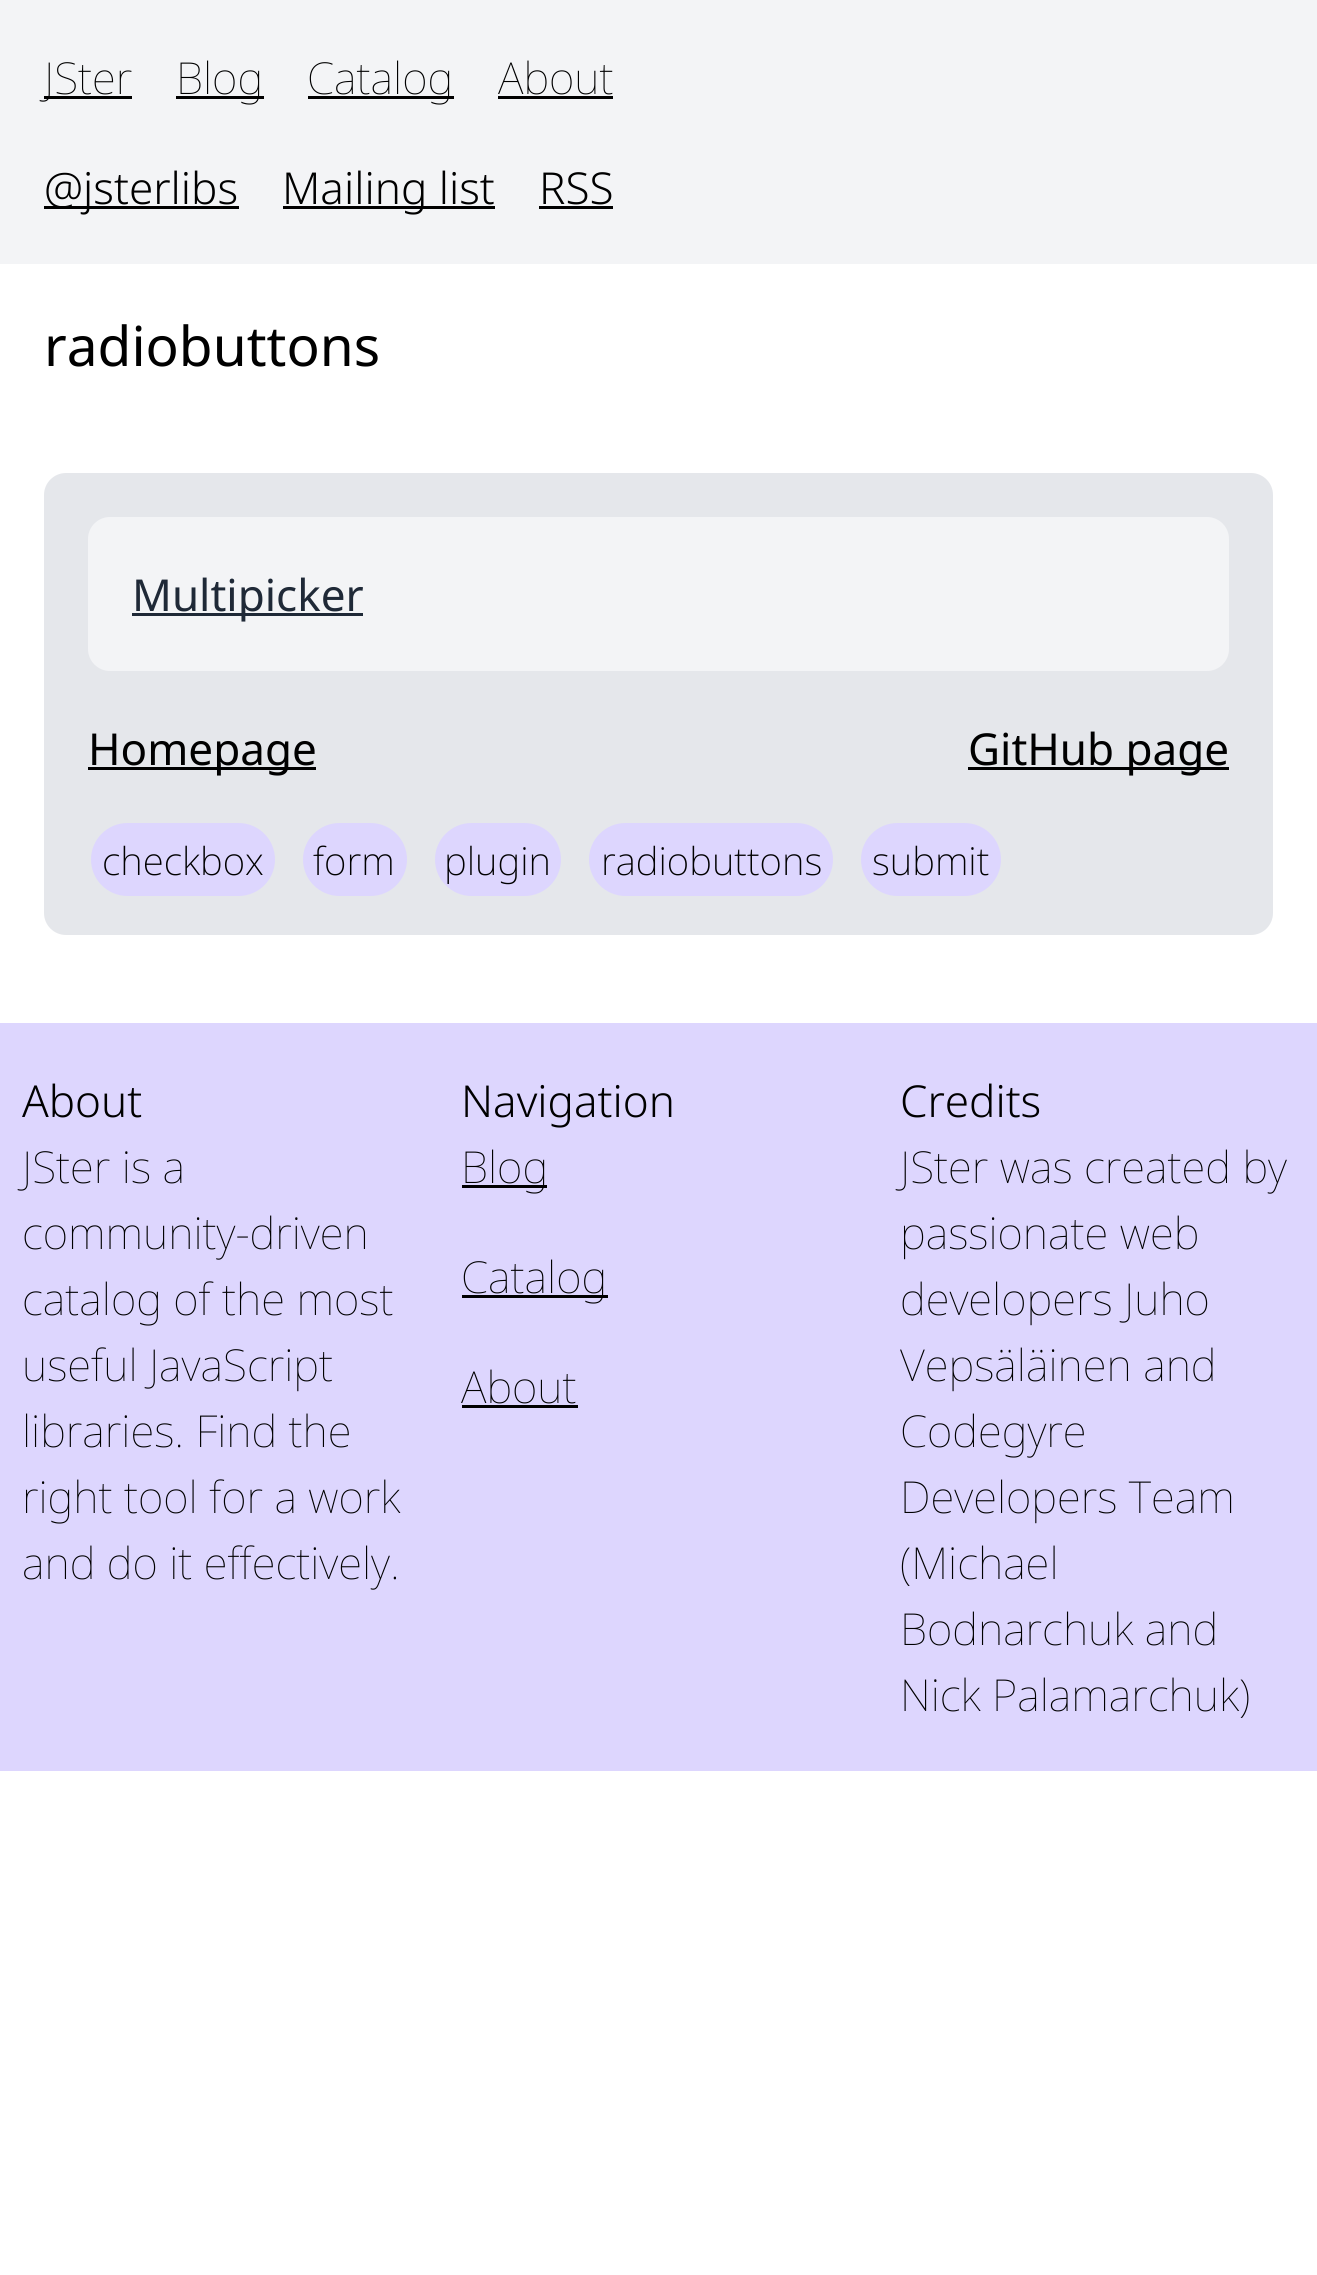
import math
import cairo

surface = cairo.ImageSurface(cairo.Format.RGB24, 1317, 2275)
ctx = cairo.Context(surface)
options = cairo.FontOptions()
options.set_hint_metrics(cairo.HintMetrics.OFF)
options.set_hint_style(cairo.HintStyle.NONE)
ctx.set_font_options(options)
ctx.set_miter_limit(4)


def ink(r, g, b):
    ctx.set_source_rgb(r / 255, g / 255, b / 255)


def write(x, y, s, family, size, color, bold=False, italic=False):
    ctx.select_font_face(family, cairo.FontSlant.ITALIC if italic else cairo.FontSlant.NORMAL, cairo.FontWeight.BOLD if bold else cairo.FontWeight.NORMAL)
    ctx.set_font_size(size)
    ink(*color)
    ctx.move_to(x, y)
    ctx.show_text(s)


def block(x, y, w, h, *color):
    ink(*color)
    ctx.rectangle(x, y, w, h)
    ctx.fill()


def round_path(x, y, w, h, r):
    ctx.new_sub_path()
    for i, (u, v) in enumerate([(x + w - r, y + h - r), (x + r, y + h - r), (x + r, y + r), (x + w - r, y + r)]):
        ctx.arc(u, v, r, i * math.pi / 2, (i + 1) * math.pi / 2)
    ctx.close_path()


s1 = dict(family="Noto Sans Thin", size=44, color=(0, 0, 0))
s2 = dict(family="Noto Sans Light", size=44, color=(0, 0, 0))
s3 = dict(family="Noto Sans", size=55, color=(0, 0, 0))
s4 = dict(family="Noto Sans", size=44, color=(31, 41, 55))
s5 = dict(family="Noto Sans", size=44, color=(0, 0, 0))
s6 = dict(family="Noto Sans ExtraLight", size=38.5, color=(0, 0, 0))

ink(255, 255, 255)
ctx.paint()
block(0, 0, 1317, 264, 243, 244, 246)
block(44, 96, 88, 3, 0, 0, 0)
write(44, 94, "JSter", **s1)
block(176, 96, 88, 3, 0, 0, 0)
write(176, 94, "Blog", **s1)
block(308, 96, 146, 3, 0, 0, 0)
write(307, 94, "Catalog", **s1)
write(498, 94, "About", **s1)
block(498, 96, 115, 3, 0, 0, 0)
block(44, 206, 195, 3, 0, 0, 0)
write(44, 204, "@jsterlibs", **s2)
block(283, 206, 212, 3, 0, 0, 0)
write(282, 204, "Mailing list", **s2)
write(539, 204, "RSS", **s2)
block(539, 206, 74, 3, 0, 0, 0)
write(44, 366, "radiobuttons", **s3)
ink(229, 231, 235)
round_path(44, 473, 1229, 462, 22)
ctx.fill()
ink(243, 244, 246)
round_path(88, 517, 1141, 154, 22)
ctx.fill()
block(132, 613, 231, 3, 31, 41, 55)
write(132, 611, "Multipicker", **s4)
block(88, 767, 228, 3, 0, 0, 0)
write(88, 765, "Homepage", **s5)
block(968, 767, 261, 3, 0, 0, 0)
write(968, 765, "GitHub page", **s5)
ink(221, 214, 254)
round_path(89.5, 821.5, 187, 76, 38)
ctx.fill_preserve()
ink(229, 231, 235)
ctx.set_line_width(3)
ctx.stroke()
write(102, 875, "checkbox", **s6)
ink(221, 214, 254)
round_path(301.5, 821.5, 107, 76, 38)
ctx.fill_preserve()
ink(229, 231, 235)
ctx.stroke()
write(313, 875, "form", **s6)
ink(221, 214, 254)
round_path(433.5, 821.5, 129, 76, 38)
ctx.fill_preserve()
ink(229, 231, 235)
ctx.stroke()
write(444, 875, "plugin", **s6)
ink(221, 214, 254)
round_path(587.5, 821.5, 247, 76, 38)
ctx.fill_preserve()
ink(229, 231, 235)
ctx.stroke()
write(601, 875, "radiobuttons", **s6)
ink(221, 214, 254)
round_path(859.5, 821.5, 143, 76, 38)
ctx.fill_preserve()
ink(229, 231, 235)
ctx.stroke()
write(872, 875, "submit", **s6)
block(0, 1023, 1317, 748, 221, 214, 254)
write(22, 1117, "About", **s2)
write(22, 1183, "JSter is a", **s1)
write(22, 1249, "community-driven", **s1)
write(22, 1315, "catalog of the most", **s1)
write(22, 1381, "useful JavaScript", **s1)
write(22, 1447, "libraries. Find the", **s1)
write(22, 1513, "right tool for a work", **s1)
write(22, 1579, "and do it effectively.", **s1)
write(461, 1117, "Navigation", **s2)
block(462, 1185, 85, 3, 0, 0, 0)
write(461, 1183, "Blog", **s1)
block(462, 1295, 146, 3, 0, 0, 0)
write(461, 1293, "Catalog", **s1)
write(461, 1403, "About", **s1)
block(462, 1405, 116, 3, 0, 0, 0)
write(900, 1117, "Credits", **s2)
write(900, 1183, "JSter was created by", **s1)
write(900, 1249, "passionate web", **s1)
write(900, 1315, "developers Juho", **s1)
write(900, 1381, "Vepsäläinen and", **s1)
write(900, 1447, "Codegyre", **s1)
write(900, 1513, "Developers Team", **s1)
write(900, 1579, "(Michael", **s1)
write(900, 1645, "Bodnarchuk and", **s1)
write(900, 1711, "Nick Palamarchuk)", **s1)
surface.write_to_png("screenshot.png")
